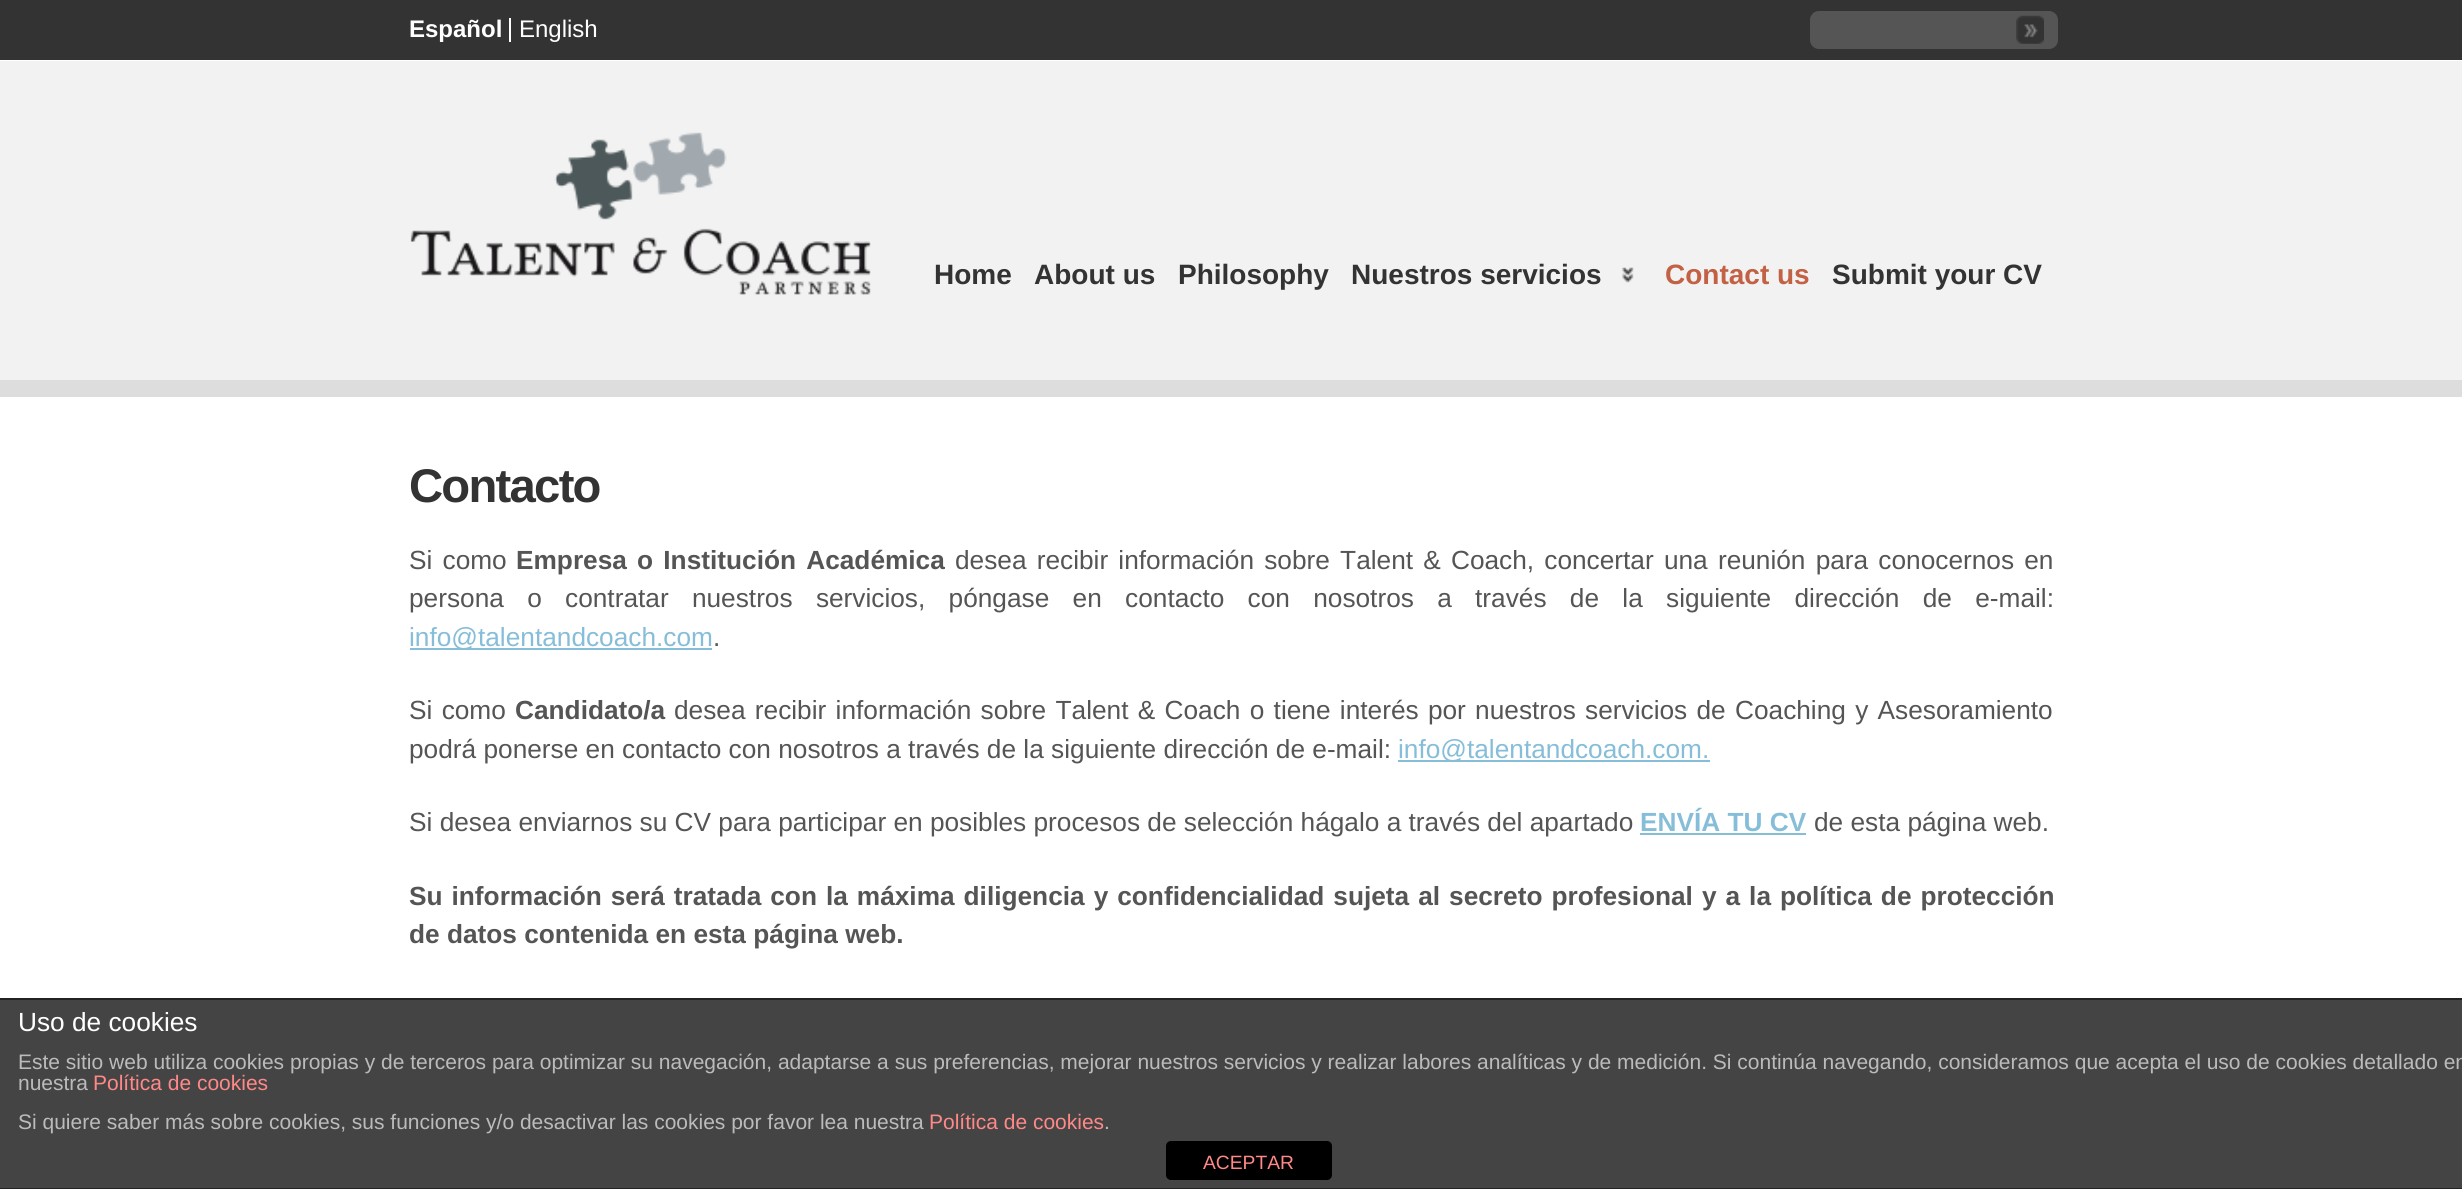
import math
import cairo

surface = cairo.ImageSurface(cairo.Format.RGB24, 2462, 1189)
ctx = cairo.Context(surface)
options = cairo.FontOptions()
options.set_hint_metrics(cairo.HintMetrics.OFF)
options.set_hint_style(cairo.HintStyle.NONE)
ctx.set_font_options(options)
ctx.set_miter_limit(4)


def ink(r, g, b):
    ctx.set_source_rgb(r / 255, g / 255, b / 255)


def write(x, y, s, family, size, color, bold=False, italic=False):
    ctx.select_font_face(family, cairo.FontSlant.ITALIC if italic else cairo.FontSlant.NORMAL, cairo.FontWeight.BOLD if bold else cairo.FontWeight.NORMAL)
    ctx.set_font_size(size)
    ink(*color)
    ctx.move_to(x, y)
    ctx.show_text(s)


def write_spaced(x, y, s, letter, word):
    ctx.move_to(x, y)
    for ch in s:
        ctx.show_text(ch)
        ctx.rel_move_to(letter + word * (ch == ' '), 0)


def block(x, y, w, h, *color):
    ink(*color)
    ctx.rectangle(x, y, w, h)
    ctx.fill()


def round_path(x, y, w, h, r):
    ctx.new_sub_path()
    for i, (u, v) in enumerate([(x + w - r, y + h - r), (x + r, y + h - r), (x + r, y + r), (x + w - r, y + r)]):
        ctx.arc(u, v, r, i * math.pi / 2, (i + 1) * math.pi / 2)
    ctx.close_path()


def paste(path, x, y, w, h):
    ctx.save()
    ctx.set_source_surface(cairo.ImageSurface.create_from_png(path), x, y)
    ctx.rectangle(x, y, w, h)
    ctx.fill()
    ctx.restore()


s1 = dict(family="Liberation Sans", size=24, color=(255, 255, 255), bold=True)
s2 = dict(family="Liberation Sans", size=24, color=(255, 255, 255))
s3 = dict(family="Liberation Sans", size=28, color=(51, 51, 51), bold=True)
s4 = dict(family="Liberation Sans", size=28, color=(194, 97, 68), bold=True)
s5 = dict(family="Liberation Sans", size=26.25, color=(134, 189, 217))
s6 = dict(family="Liberation Sans", size=26.25, color=(85, 85, 85))
s7 = dict(family="Liberation Sans", size=26.25, color=(85, 85, 85), bold=True)
s8 = dict(family="Liberation Sans", size=26.25, color=(134, 189, 217), bold=True)
s9 = dict(family="Liberation Sans", size=26.25, color=(255, 255, 255))
s10 = dict(family="Liberation Sans", size=21, color=(187, 187, 187))
s11 = dict(family="Liberation Sans", size=21, color=(255, 136, 136))
s12 = dict(family="Liberation Sans", size=19.25, color=(255, 136, 136))

ink(255, 255, 255)
ctx.paint()
block(0, 0, 2462, 60, 51, 51, 51)
block(509, 18, 2, 24, 255, 255, 255)
write(409, 37, "Español", **s1)
write(519, 37, "English", **s2)
ink(85, 85, 85)
round_path(1810, 11, 248, 38, 9)
ctx.fill()
paste("pic1.png", 2016, 15, 28, 29)
block(0, 61, 2462, 319, 242, 242, 242)
block(0, 380, 2462, 17, 221, 221, 221)
paste("pic2.png", 410, 132, 461, 163)
write(934, 284, "Home", **s3)
write(1034, 284, "About us", **s3)
write(1178, 284, "Philosophy", **s3)
write(1351, 284, "Nuestros servicios", **s3)
paste("pic3.png", 1622, 267, 12, 16)
write(1665, 284, "Contact us", **s4)
write(1832, 284, "Submit your CV", **s3)
ctx.set_font_size(47.25)
write_spaced(409, 502, "Contacto", -1.75, 0)
ctx.select_font_face("Liberation Sans")
ctx.set_font_size(26.25)
ink(85, 85, 85)
write_spaced(409, 569, "Si como", 0, 2.9)
ctx.select_font_face("Liberation Sans", cairo.FontSlant.NORMAL, cairo.FontWeight.BOLD)
write_spaced(516, 569, "Empresa o Institución Académica", 0, 2.9)
ctx.select_font_face("Liberation Sans")
write_spaced(955, 569, "desea recibir información sobre Talent & Coach, concertar una reunión para conocernos en", 0, 2.9)
write_spaced(409, 607, "persona o contratar nuestros servicios, póngase en contacto con nosotros a través de la siguiente dirección de e-mail:", 0, 16)
block(410, 648, 302, 2, 134, 189, 217)
write(409, 646, "info@talentandcoach.com", **s5)
write(713, 646, ".", **s6)
write_spaced(409, 719, "Si como", 0, 2)
write(515, 719, "Candidato/a", **s7)
ctx.select_font_face("Liberation Sans")
write_spaced(674, 719, "desea recibir información sobre Talent & Coach o tiene interés por nuestros servicios de Coaching y Asesoramiento", 0, 2)
write(409, 758, "podrá ponerse en contacto con nosotros a través de la siguiente dirección de e-mail:", **s6)
block(1398, 760, 312, 2, 134, 189, 217)
write(1398, 758, "info@talentandcoach.com.", **s5)
write(409, 831, "Si desea enviarnos su CV para participar en posibles procesos de selección hágalo a través del apartado", **s6)
write(1640, 831, "ENVÍA TU CV", **s8)
block(1640, 833, 166, 2, 134, 189, 217)
write(1814, 831, "de esta página web.", **s6)
ctx.select_font_face("Liberation Sans", cairo.FontSlant.NORMAL, cairo.FontWeight.BOLD)
write_spaced(409, 905, "Su información será tratada con la máxima diligencia y confidencialidad sujeta al secreto profesional y a la política de protección", 0, 1.7)
write(409, 943, "de datos contenida en esta página web.", **s7)
block(0, 1000, 2462, 188, 68, 68, 68)
block(0, 998, 2462, 2, 34, 34, 34)
block(0, 1188, 2462, 1, 34, 34, 34)
write(18, 1031, "Uso de cookies", **s9)
write(18, 1069, "Este sitio web utiliza cookies propias y de terceros para optimizar su navegación, adaptarse a sus preferencias, mejorar nuestros servicios y realizar labores analíticas y de medición. Si continúa navegando, consideramos que acepta el uso de cookies detallado en", **s10)
write(18, 1090, "nuestra", **s10)
write(93, 1090, "Política de cookies", **s11)
write(18, 1129, "Si quiere saber más sobre cookies, sus funciones y/o desactivar las cookies por favor lea nuestra", **s10)
write(929, 1129, "Política de cookies", **s11)
write(1104, 1129, ".", **s10)
ink(0, 0, 0)
round_path(1166, 1141, 166, 39, 5)
ctx.fill()
write(1203, 1169, "ACEPTAR", **s12)
surface.write_to_png("screenshot.png")
